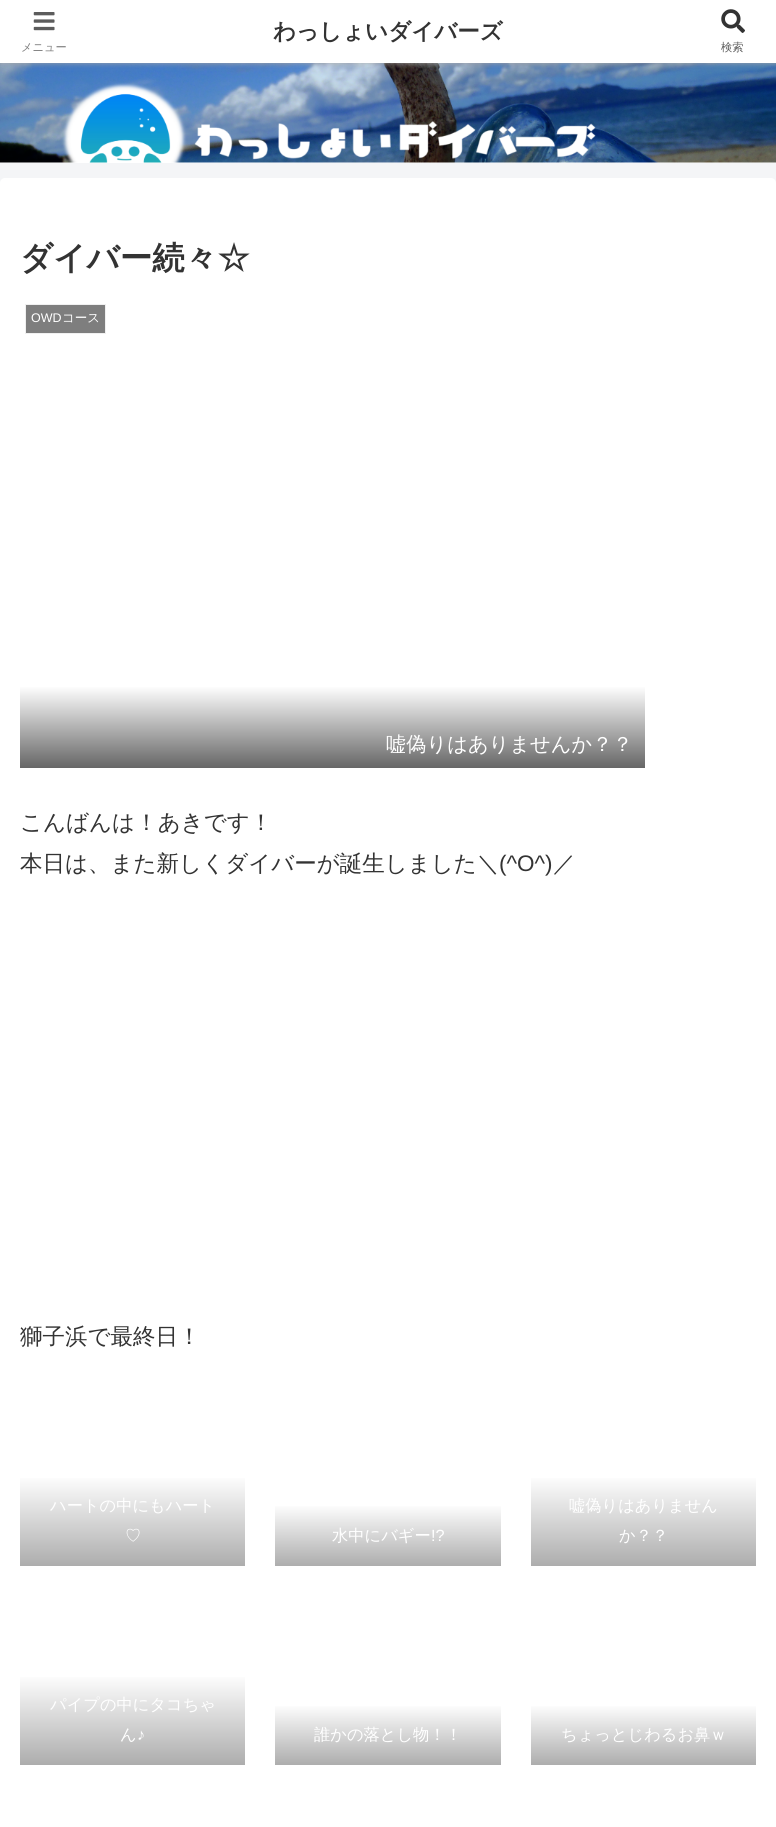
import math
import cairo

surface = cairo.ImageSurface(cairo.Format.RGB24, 776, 1827)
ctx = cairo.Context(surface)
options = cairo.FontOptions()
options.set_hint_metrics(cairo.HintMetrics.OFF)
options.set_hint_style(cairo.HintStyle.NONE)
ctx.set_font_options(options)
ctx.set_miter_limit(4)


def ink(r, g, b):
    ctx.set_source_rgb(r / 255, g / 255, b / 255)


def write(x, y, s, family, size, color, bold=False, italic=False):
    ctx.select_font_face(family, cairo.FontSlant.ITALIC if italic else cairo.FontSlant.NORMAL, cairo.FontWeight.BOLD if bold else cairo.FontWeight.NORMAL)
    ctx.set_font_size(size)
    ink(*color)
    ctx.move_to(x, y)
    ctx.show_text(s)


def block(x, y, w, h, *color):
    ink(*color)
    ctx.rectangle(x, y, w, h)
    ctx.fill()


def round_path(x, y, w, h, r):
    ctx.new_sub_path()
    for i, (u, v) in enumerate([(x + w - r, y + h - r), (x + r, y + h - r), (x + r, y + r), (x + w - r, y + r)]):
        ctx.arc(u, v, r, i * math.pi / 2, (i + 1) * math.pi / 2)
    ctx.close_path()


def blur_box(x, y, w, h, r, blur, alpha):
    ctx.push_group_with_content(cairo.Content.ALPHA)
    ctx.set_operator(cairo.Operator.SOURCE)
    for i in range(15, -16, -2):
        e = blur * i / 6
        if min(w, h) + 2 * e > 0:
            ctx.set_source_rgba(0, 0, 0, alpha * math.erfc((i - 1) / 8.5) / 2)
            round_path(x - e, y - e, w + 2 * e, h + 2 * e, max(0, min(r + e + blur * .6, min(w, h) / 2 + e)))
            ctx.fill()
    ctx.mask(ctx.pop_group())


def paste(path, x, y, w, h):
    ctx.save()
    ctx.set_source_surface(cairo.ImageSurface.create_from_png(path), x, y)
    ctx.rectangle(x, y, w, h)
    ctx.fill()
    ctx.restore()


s1 = dict(family="WenQuanYi Zen Hei", size=22.5, color=(51, 51, 51), bold=True)
s2 = dict(family="WenQuanYi Zen Hei Medium", size=11.25, color=(124, 124, 124))
s3 = dict(family="WenQuanYi Zen Hei Medium", size=11.25, color=(92, 92, 92))
s4 = dict(family="WenQuanYi Zen Hei", size=32.5, color=(51, 51, 51), bold=True)
s5 = dict(family="Liberation Sans", size=12.5, color=(255, 255, 255))
s6 = dict(family="WenQuanYi Zen Hei Medium", size=12.5, color=(255, 255, 255))
s7 = dict(family="WenQuanYi Zen Hei Medium", size=20.25, color=(255, 255, 255))
s8 = dict(family="WenQuanYi Zen Hei Medium", size=22.5, color=(51, 51, 51))
s9 = dict(family="Liberation Sans", size=22.5, color=(51, 51, 51))
s10 = dict(family="WenQuanYi Zen Hei Medium", size=16.25, color=(255, 255, 255))
s11 = dict(family="Liberation Sans", size=16.25, color=(255, 255, 255))

ink(244, 245, 247)
ctx.paint()
block(0, 162, 776, 1, 255, 255, 255)
paste("pic3.png", 0, 63, 776, 100)
ink(169, 169, 169)
blur_box(0, 0, 776, 63, 0, 3, 1)
block(0, 0, 776, 63, 255, 255, 255)
write(273, 39, "わっしょいダイバーズ", **s1)
paste("pic1.png", 33, 12, 22, 19)
write(21, 51, "メニュー", **s2)
paste("pic2.png", 721, 9, 24, 24)
write(721, 51, "検索", **s3)
ink(255, 255, 255)
round_path(0, 178, 776, 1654, 5)
ctx.fill()
write(20, 269, "ダイバー続々☆", **s4)
ink(126, 126, 126)
ctx.rectangle(25.5, 304.5, 80, 29)
ctx.fill_preserve()
ink(240, 240, 240)
ctx.set_line_width(1)
ctx.stroke()
write(31, 322, "OWD", **s5)
write(62, 322, "コース", **s6)
gradient = cairo.LinearGradient(333, 686, 333, 768)
gradient.add_color_stop_rgba(0, 1, 1, 1, 1)
gradient.add_color_stop_rgba(1, 0.4, 0.4, 0.4, 1)
ctx.set_source(gradient)
ctx.rectangle(20, 687, 625, 81)
ctx.fill()
write(386, 751, "嘘偽りはありませんか？？", **s7)
write(20, 830, "こんばんは！あきです！", **s8)
write(20, 871, "本日は、また新しくダイバーが誕生しました＼", **s8)
write(499, 871, "(^O^)", **s9)
write(553, 871, "／", **s8)
write(20, 1344, "獅子浜で最終日！", **s8)
gradient = cairo.LinearGradient(133, 1566, 133, 1475)
gradient.add_color_stop_rgba(0, 0.678, 0.678, 0.678, 1)
gradient.add_color_stop_rgba(1, 1, 1, 1, 1)
ctx.set_source(gradient)
ctx.rectangle(20, 1478, 225, 88)
ctx.fill()
write(50, 1511, "ハートの中にもハート", **s10)
write(125, 1541, "♡", **s10)
gradient = cairo.LinearGradient(388, 1566, 388, 1504)
gradient.add_color_stop_rgba(0, 0.678, 0.678, 0.678, 1)
gradient.add_color_stop_rgba(1, 1, 1, 1, 1)
ctx.set_source(gradient)
ctx.rectangle(275, 1506, 226, 60)
ctx.fill()
write(332, 1541, "水中にバギー", **s10)
write(431, 1541, "!?", **s11)
gradient = cairo.LinearGradient(644, 1566, 644, 1475)
gradient.add_color_stop_rgba(0, 0.678, 0.678, 0.678, 1)
gradient.add_color_stop_rgba(1, 1, 1, 1, 1)
ctx.set_source(gradient)
ctx.rectangle(531, 1478, 225, 88)
ctx.fill()
write(569, 1511, "嘘偽りはありません", **s10)
write(619, 1541, "か？？", **s10)
gradient = cairo.LinearGradient(133, 1765, 133, 1674)
gradient.add_color_stop_rgba(0, 0.678, 0.678, 0.678, 1)
gradient.add_color_stop_rgba(1, 1, 1, 1, 1)
ctx.set_source(gradient)
ctx.rectangle(20, 1677, 225, 88)
ctx.fill()
write(50, 1710, "パイプの中にタコちゃ", **s10)
write(120, 1740, "ん", **s10)
write(137, 1740, "♪", **s11)
gradient = cairo.LinearGradient(388, 1765, 388, 1704)
gradient.add_color_stop_rgba(0, 0.678, 0.678, 0.678, 1)
gradient.add_color_stop_rgba(1, 1, 1, 1, 1)
ctx.set_source(gradient)
ctx.rectangle(275, 1706, 226, 59)
ctx.fill()
write(314, 1740, "誰かの落とし物！！", **s10)
gradient = cairo.LinearGradient(644, 1765, 644, 1704)
gradient.add_color_stop_rgba(0, 0.678, 0.678, 0.678, 1)
gradient.add_color_stop_rgba(1, 1, 1, 1, 1)
ctx.set_source(gradient)
ctx.rectangle(531, 1706, 225, 59)
ctx.fill()
write(561, 1740, "ちょっとじわるお鼻ｗ", **s10)
surface.write_to_png("screenshot.png")
